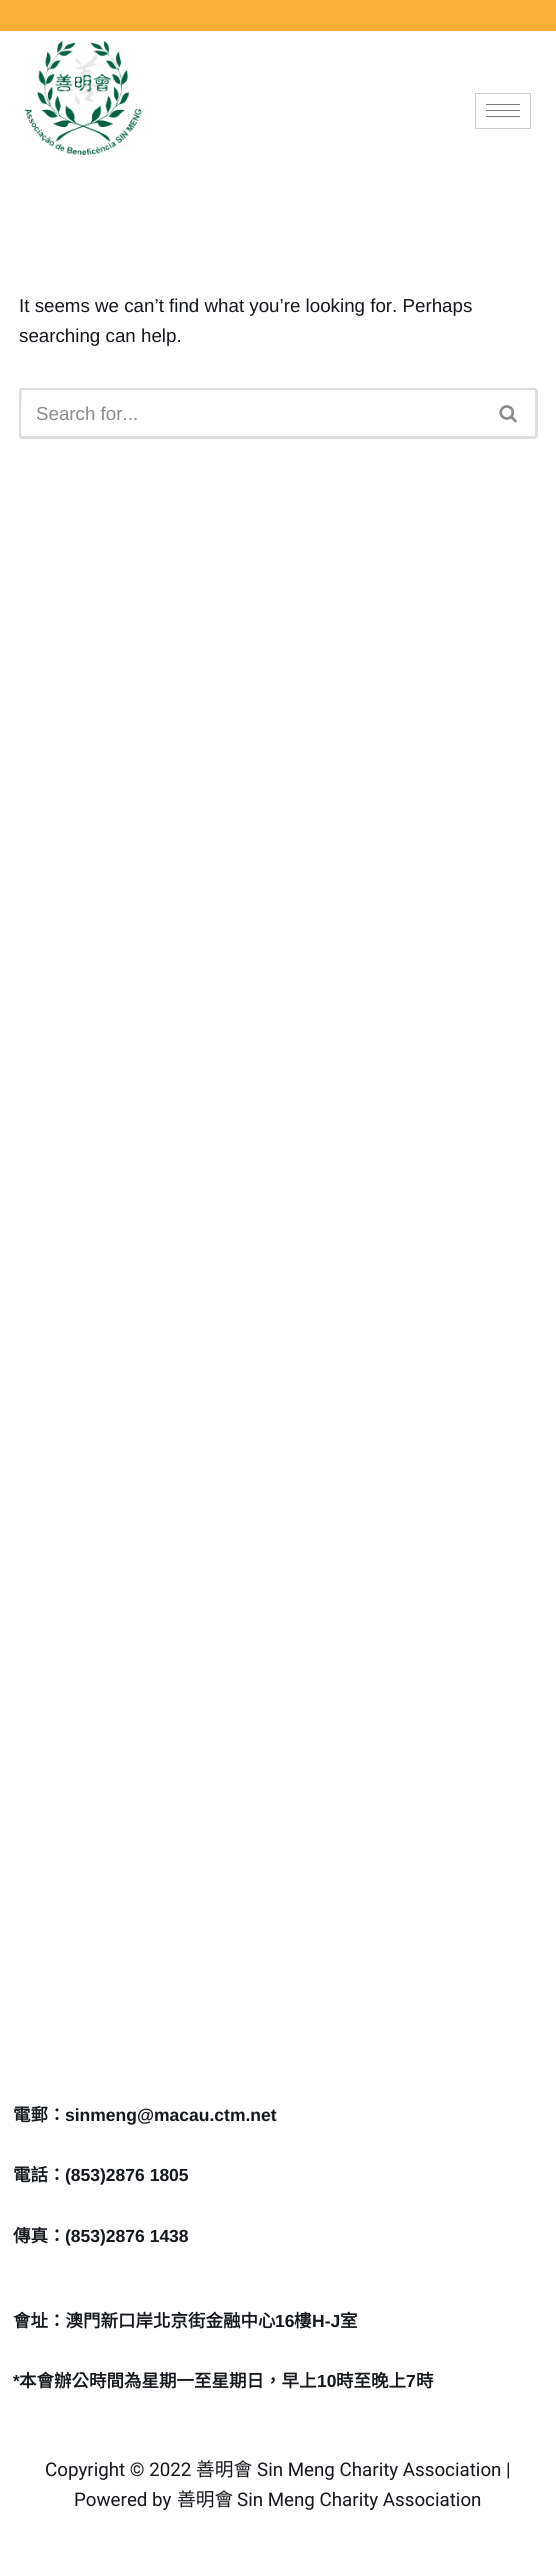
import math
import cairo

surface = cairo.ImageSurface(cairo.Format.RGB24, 556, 2565)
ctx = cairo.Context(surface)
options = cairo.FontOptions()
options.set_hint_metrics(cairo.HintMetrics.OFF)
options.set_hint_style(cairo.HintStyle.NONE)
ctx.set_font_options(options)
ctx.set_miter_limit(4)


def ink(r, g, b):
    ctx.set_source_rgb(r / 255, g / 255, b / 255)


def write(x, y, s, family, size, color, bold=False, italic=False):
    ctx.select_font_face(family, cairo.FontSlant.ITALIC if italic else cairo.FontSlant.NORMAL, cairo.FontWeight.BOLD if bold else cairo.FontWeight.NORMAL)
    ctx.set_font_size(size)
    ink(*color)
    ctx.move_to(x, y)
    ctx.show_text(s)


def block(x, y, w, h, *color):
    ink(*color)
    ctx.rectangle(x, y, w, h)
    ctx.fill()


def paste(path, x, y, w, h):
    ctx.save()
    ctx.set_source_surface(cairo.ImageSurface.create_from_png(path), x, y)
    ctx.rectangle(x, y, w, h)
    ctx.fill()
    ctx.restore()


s1 = dict(family="Liberation Sans", size=18.75, color=(20, 23, 28))
s2 = dict(family="Liberation Sans", size=18.75, color=(138, 139, 142))
s3 = dict(family="Noto Sans CJK TC", size=17.5, color=(20, 23, 28), bold=True)
s4 = dict(family="Liberation Sans", size=17.5, color=(20, 23, 28), bold=True)
s5 = dict(family="Roboto", size=18.75, color=(20, 23, 28))
s6 = dict(family="Noto Sans CJK TC", size=18.75, color=(20, 23, 28))

ink(255, 255, 255)
ctx.paint()
block(0, 0, 556, 31, 252, 175, 59)
paste("pic1.png", 25, 41, 117, 114)
ctx.rectangle(475.5, 93.5, 55, 35)
ink(204, 204, 204)
ctx.set_line_width(1)
ctx.stroke()
block(486, 104, 34, 1, 122, 122, 122)
block(486, 110, 34, 1, 122, 122, 122)
block(486, 116, 34, 1, 122, 122, 122)
write(19, 312, "It seems we can’t find what you’re looking for. Perhaps", **s1)
write(19, 342, "searching can help.", **s1)
ink(221, 221, 221)
ctx.set_fill_rule(cairo.FillRule.EVEN_ODD)
ctx.new_path()
ctx.move_to(22, 388)
ctx.line_to(481, 388)
ctx.line_to(481, 439)
ctx.line_to(22, 439)
ctx.curve_to(20, 439, 19, 437, 19, 435)
ctx.line_to(19, 391)
ctx.curve_to(19, 389, 20, 388, 22, 388)
ctx.close_path()
ctx.move_to(22, 390)
ctx.line_to(481, 390)
ctx.line_to(481, 436)
ctx.line_to(22, 436)
ctx.line_to(21, 435)
ctx.curve_to(21, 430, 21, 391, 22, 390)
ctx.close_path()
ctx.fill()
write(36, 420, "Search for...", **s2)
ink(221, 221, 221)
ctx.new_path()
ctx.move_to(481, 388)
ctx.line_to(534, 388)
ctx.curve_to(536, 388, 538, 389, 538, 391)
ctx.line_to(538, 435)
ctx.curve_to(538, 437, 536, 439, 534, 439)
ctx.line_to(481, 439)
ctx.close_path()
ctx.move_to(481, 390)
ctx.line_to(534, 390)
ctx.curve_to(534, 390, 535, 391, 535, 391)
ctx.line_to(535, 435)
ctx.curve_to(535, 436, 534, 436, 534, 436)
ctx.line_to(481, 436)
ctx.close_path()
ctx.fill()
paste("pic2.png", 499, 405, 18, 18)
write(13, 2121, "電郵：", **s3)
write(65, 2121, "sinmeng@macau.ctm.net", **s4)
write(13, 2181, "電話：", **s3)
write(65, 2181, "(853)2876 1805", **s4)
write(13, 2242, "傳真：", **s3)
write(65, 2242, "(853)2876 1438", **s4)
write(13, 2327, "會址：澳門新口岸北京街金融中心", **s3)
write(275, 2327, "16", **s4)
write(294, 2327, "樓", **s3)
write(312, 2327, "H-J", **s4)
write(340, 2327, "室", **s3)
write(13, 2387, "*", **s4)
write(19, 2387, "本會辦公時間為星期一至星期日，早上", **s3)
write(317, 2387, "10", **s4)
write(336, 2387, "時至晚上", **s3)
write(406, 2387, "7", **s4)
write(416, 2387, "時", **s3)
write(45, 2476, "Copyright © 2022", **s5)
write(196, 2476, "善明會", **s6)
write(257, 2476, "Sin Meng Charity Association |", **s5)
write(74, 2506, "Powered by", **s5)
write(177, 2506, "善明會", **s6)
write(237, 2506, "Sin Meng Charity Association", **s5)
surface.write_to_png("screenshot.png")
